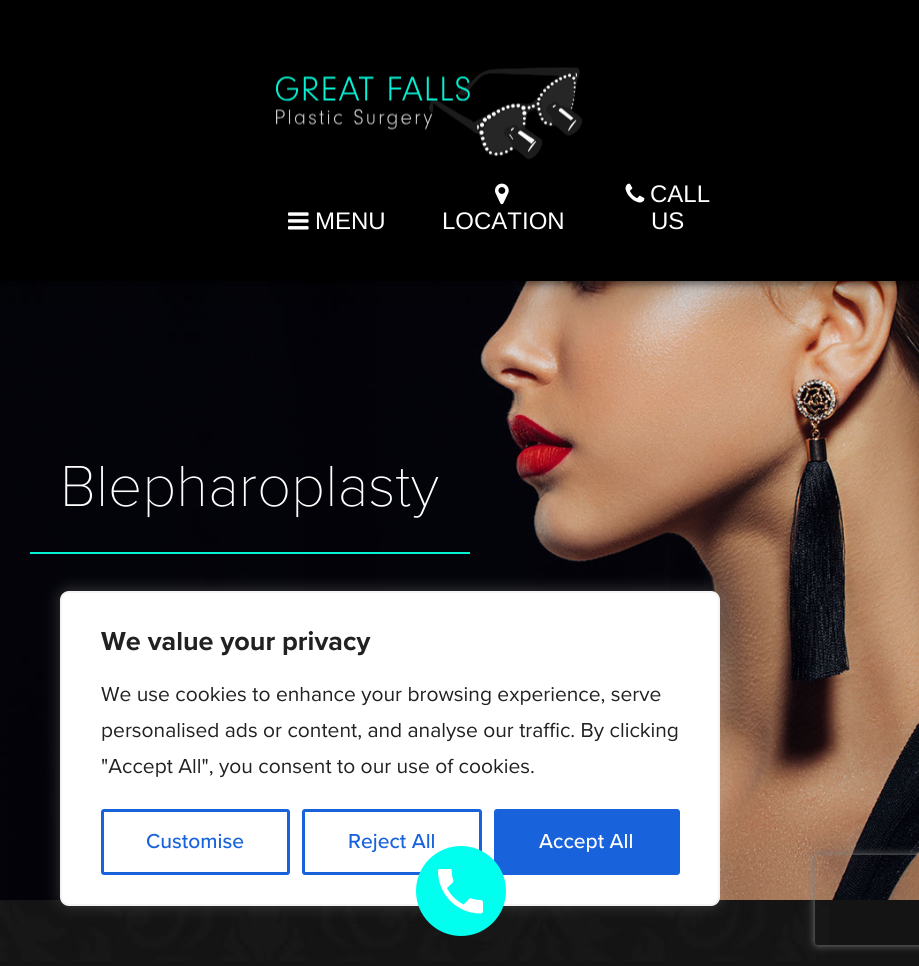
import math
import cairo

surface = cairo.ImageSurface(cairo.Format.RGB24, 919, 966)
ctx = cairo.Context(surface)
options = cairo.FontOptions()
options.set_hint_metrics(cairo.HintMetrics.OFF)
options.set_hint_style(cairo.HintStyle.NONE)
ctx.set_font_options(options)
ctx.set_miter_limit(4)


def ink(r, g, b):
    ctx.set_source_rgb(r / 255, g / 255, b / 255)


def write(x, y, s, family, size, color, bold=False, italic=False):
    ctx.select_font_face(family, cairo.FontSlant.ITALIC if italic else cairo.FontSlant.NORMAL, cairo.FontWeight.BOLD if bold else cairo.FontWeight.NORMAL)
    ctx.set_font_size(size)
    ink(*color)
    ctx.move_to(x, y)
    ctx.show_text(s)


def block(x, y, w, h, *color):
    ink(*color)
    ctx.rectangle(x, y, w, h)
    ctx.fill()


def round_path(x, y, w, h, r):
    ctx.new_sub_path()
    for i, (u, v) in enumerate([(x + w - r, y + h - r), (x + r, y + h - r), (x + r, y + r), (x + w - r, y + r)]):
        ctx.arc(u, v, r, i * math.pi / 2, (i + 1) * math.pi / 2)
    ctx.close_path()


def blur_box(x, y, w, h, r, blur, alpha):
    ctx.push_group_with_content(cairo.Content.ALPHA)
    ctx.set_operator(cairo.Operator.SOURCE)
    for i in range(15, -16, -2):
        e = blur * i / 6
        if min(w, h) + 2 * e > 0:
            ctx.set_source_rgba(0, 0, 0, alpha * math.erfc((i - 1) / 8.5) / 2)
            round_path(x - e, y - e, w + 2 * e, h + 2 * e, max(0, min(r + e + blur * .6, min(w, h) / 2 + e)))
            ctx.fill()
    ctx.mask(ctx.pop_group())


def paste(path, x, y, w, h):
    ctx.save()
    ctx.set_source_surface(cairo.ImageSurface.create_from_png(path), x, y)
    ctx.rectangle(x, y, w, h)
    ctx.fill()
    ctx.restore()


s1 = dict(family="Liberation Sans", size=24, color=(255, 255, 255))
s2 = dict(family="Proxima Nova Thin", size=60, color=(255, 255, 255))
s3 = dict(family="Proxima Nova", size=27, color=(33, 33, 33), bold=True)
s4 = dict(family="Proxima Nova", size=21, color=(33, 33, 33))
s5 = dict(family="Proxima Nova Medium", size=21, color=(24, 99, 220))
s6 = dict(family="Proxima Nova Medium", size=21, color=(255, 255, 255))

ink(20, 20, 20)
ctx.paint()
paste("pic1.png", 0, 281, 919, 619)
ink(0, 0, 0)
blur_box(0, 3, 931, 281, 0, 4, 0.5)
block(0, 0, 919, 281, 0, 0, 0)
paste("pic2.png", 276, 67, 306, 93)
paste("pic3.png", 288, 212, 21, 18)
write(315, 229, "MENU", **s1)
paste("pic4.png", 495, 183, 14, 22)
write(442, 229, "LOCATION", **s1)
paste("pic5.png", 625, 183, 20, 20)
write(650, 202, "CALL", **s1)
write(651, 229, "US", **s1)
block(30, 552, 440, 2, 3, 243, 212)
write(60, 506, "Blepharoplasty", **s2)
paste("pic7.png", 0, 901, 829, 60)
ink(172, 171, 171)
blur_box(60, 590, 660, 315, 9, 7.5, 0.3)
ink(255, 255, 255)
round_path(61, 592, 658, 313, 8)
ctx.fill_preserve()
ink(244, 244, 244)
ctx.stroke()
write(101, 650, "We value your privacy", **s3)
write(101, 701, "We use cookies to enhance your browsing experience, serve", **s4)
write(101, 737, "personalised ads or content, and analyse our traffic. By clicking", **s4)
write(101, 773, "\"Accept All\", you consent to our use of cookies.", **s4)
round_path(102.5, 810.5, 186, 63, 1.5)
ink(24, 99, 220)
ctx.set_line_width(3)
ctx.stroke()
write(146, 848, "Customise", **s5)
round_path(303.5, 810.5, 177, 63, 1.5)
ctx.stroke()
write(348, 848, "Reject All", **s5)
round_path(495.5, 810.5, 183, 63, 1.5)
ctx.fill_preserve()
ctx.stroke()
write(539, 848, "Accept All", **s6)
ink(0, 255, 238)
ctx.new_path()
ctx.arc(461, 891, 45, 0, 2 * math.pi)
ctx.fill()
paste("pic6.png", 438, 869, 45, 45)
ctx.save()
ctx.set_fill_rule(cairo.FillRule.EVEN_ODD)
ctx.new_path()
ctx.move_to(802, 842)
ctx.line_to(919, 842)
ctx.line_to(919, 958)
ctx.line_to(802, 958)
ctx.close_path()
ctx.move_to(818, 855)
ctx.line_to(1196, 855)
ctx.curve_to(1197.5, 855, 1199, 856.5, 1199, 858)
ctx.line_to(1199, 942)
ctx.curve_to(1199, 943.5, 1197.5, 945, 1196, 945)
ctx.line_to(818, 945)
ctx.curve_to(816.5, 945, 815, 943.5, 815, 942)
ctx.line_to(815, 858)
ctx.curve_to(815, 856.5, 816.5, 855, 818, 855)
ctx.close_path()
ctx.clip()
ink(128, 128, 128)
blur_box(815, 855, 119, 90, 3, 4, 1)
ctx.restore()
surface.write_to_png("screenshot.png")
